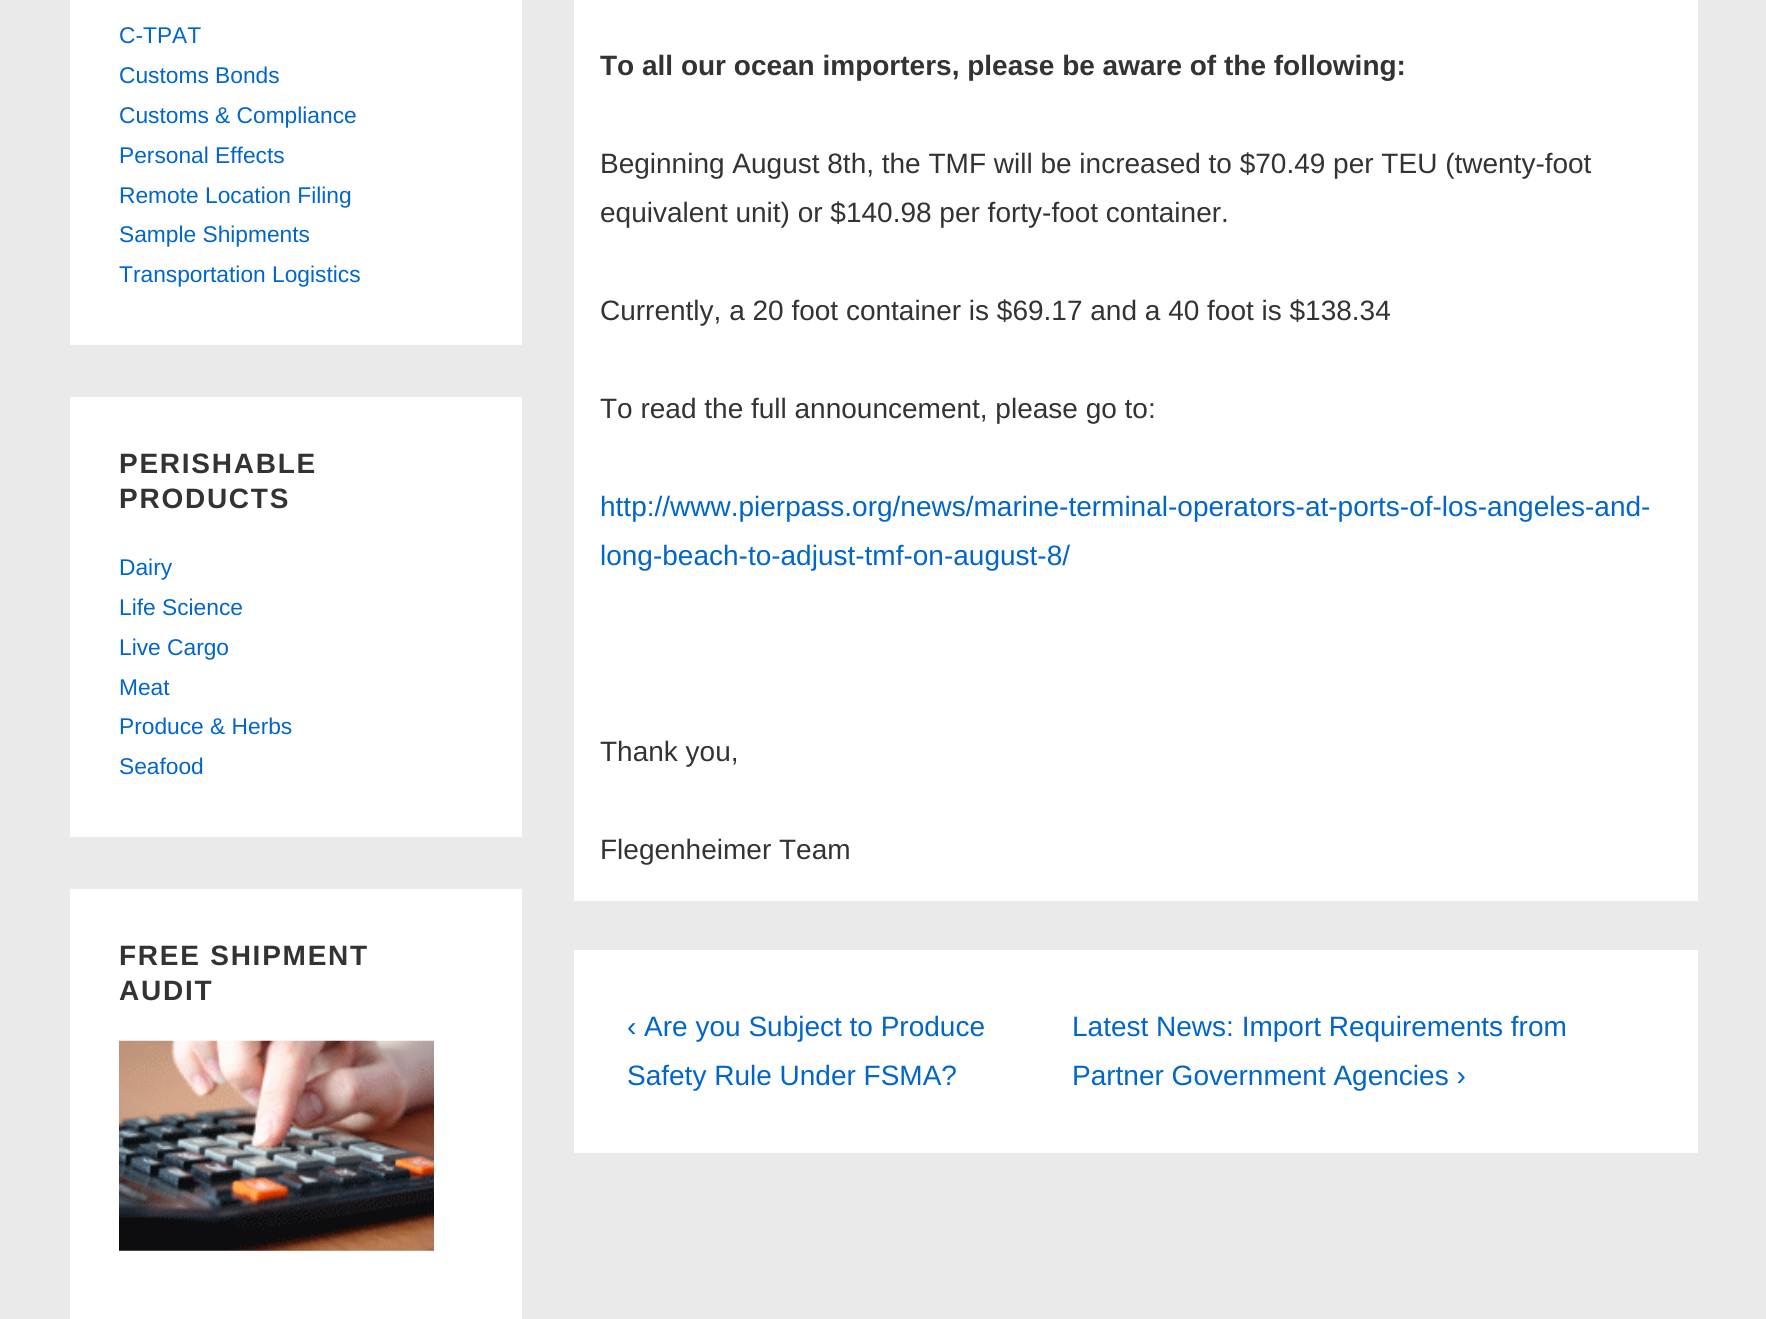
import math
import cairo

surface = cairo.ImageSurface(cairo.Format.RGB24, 1766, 1319)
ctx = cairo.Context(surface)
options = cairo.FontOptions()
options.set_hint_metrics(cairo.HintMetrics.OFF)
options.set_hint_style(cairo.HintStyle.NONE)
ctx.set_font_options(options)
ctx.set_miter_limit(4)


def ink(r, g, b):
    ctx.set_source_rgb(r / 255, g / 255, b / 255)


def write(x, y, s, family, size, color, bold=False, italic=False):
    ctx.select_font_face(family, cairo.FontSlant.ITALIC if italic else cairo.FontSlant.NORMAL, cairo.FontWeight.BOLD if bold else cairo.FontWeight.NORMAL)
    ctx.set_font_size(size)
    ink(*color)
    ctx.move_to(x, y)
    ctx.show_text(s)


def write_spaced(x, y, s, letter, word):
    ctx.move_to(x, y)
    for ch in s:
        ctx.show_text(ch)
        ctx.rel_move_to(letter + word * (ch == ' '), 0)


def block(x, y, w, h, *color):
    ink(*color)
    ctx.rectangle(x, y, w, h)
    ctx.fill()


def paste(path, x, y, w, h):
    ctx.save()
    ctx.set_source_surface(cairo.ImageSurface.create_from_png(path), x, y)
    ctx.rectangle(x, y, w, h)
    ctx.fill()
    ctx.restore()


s1 = dict(family="Liberation Sans", size=22.75, color=(0, 102, 204))
s2 = dict(family="Liberation Sans", size=28, color=(51, 51, 51), bold=True)
s3 = dict(family="Liberation Sans", size=28, color=(51, 51, 51))
s4 = dict(family="Liberation Sans", size=28, color=(0, 102, 204))

ink(234, 234, 234)
ctx.paint()
block(70, 0, 452, 345, 255, 255, 255)
write(119, 43, "C-TPAT", **s1)
write(119, 83, "Customs Bonds", **s1)
write(119, 123, "Customs & Compliance", **s1)
write(119, 163, "Personal Effects", **s1)
write(119, 203, "Remote Location Filing", **s1)
write(119, 242, "Sample Shipments", **s1)
write(119, 282, "Transportation Logistics", **s1)
block(70, 397, 452, 440, 255, 255, 255)
ctx.select_font_face("Liberation Sans", cairo.FontSlant.NORMAL, cairo.FontWeight.BOLD)
ctx.set_font_size(28)
ink(51, 51, 51)
write_spaced(119, 473, "PERISHABLE", 1.75, 0)
write_spaced(119, 508, "PRODUCTS", 1.75, 0)
write(119, 575, "Dairy", **s1)
write(119, 615, "Life Science", **s1)
write(119, 655, "Live Cargo", **s1)
write(119, 695, "Meat", **s1)
write(119, 734, "Produce & Herbs", **s1)
write(119, 774, "Seafood", **s1)
block(70, 889, 452, 430, 255, 255, 255)
ctx.select_font_face("Liberation Sans", cairo.FontSlant.NORMAL, cairo.FontWeight.BOLD)
ctx.set_font_size(28)
ink(51, 51, 51)
write_spaced(119, 965, "FREE SHIPMENT", 1.75, 0)
write_spaced(119, 1000, "AUDIT", 1.75, 0)
paste("pic1.png", 119, 1040, 315, 211)
block(574, 0, 1124, 901, 255, 255, 255)
write(600, 75, "To all our ocean importers, please be aware of the following:", **s2)
write(600, 173, "Beginning August 8th, the TMF will be increased to $70.49 per TEU (twenty-foot", **s3)
write(600, 222, "equivalent unit) or $140.98 per forty-foot container.", **s3)
write(600, 320, "Currently, a 20 foot container is $69.17 and a 40 foot is $138.34", **s3)
write(600, 418, "To read the full announcement, please go to:", **s3)
write(600, 516, "http://www.pierpass.org/news/marine-terminal-operators-at-ports-of-los-angeles-and-", **s4)
write(600, 565, "long-beach-to-adjust-tmf-on-august-8/", **s4)
write(600, 761, "Thank you,", **s3)
write(600, 859, "Flegenheimer Team", **s3)
block(574, 950, 1124, 203, 255, 255, 255)
write(627, 1036, "‹ Are you Subject to Produce", **s4)
write(627, 1085, "Safety Rule Under FSMA?", **s4)
write(1072, 1036, "Latest News: Import Requirements from", **s4)
write(1072, 1085, "Partner Government Agencies ›", **s4)
surface.write_to_png("screenshot.png")
